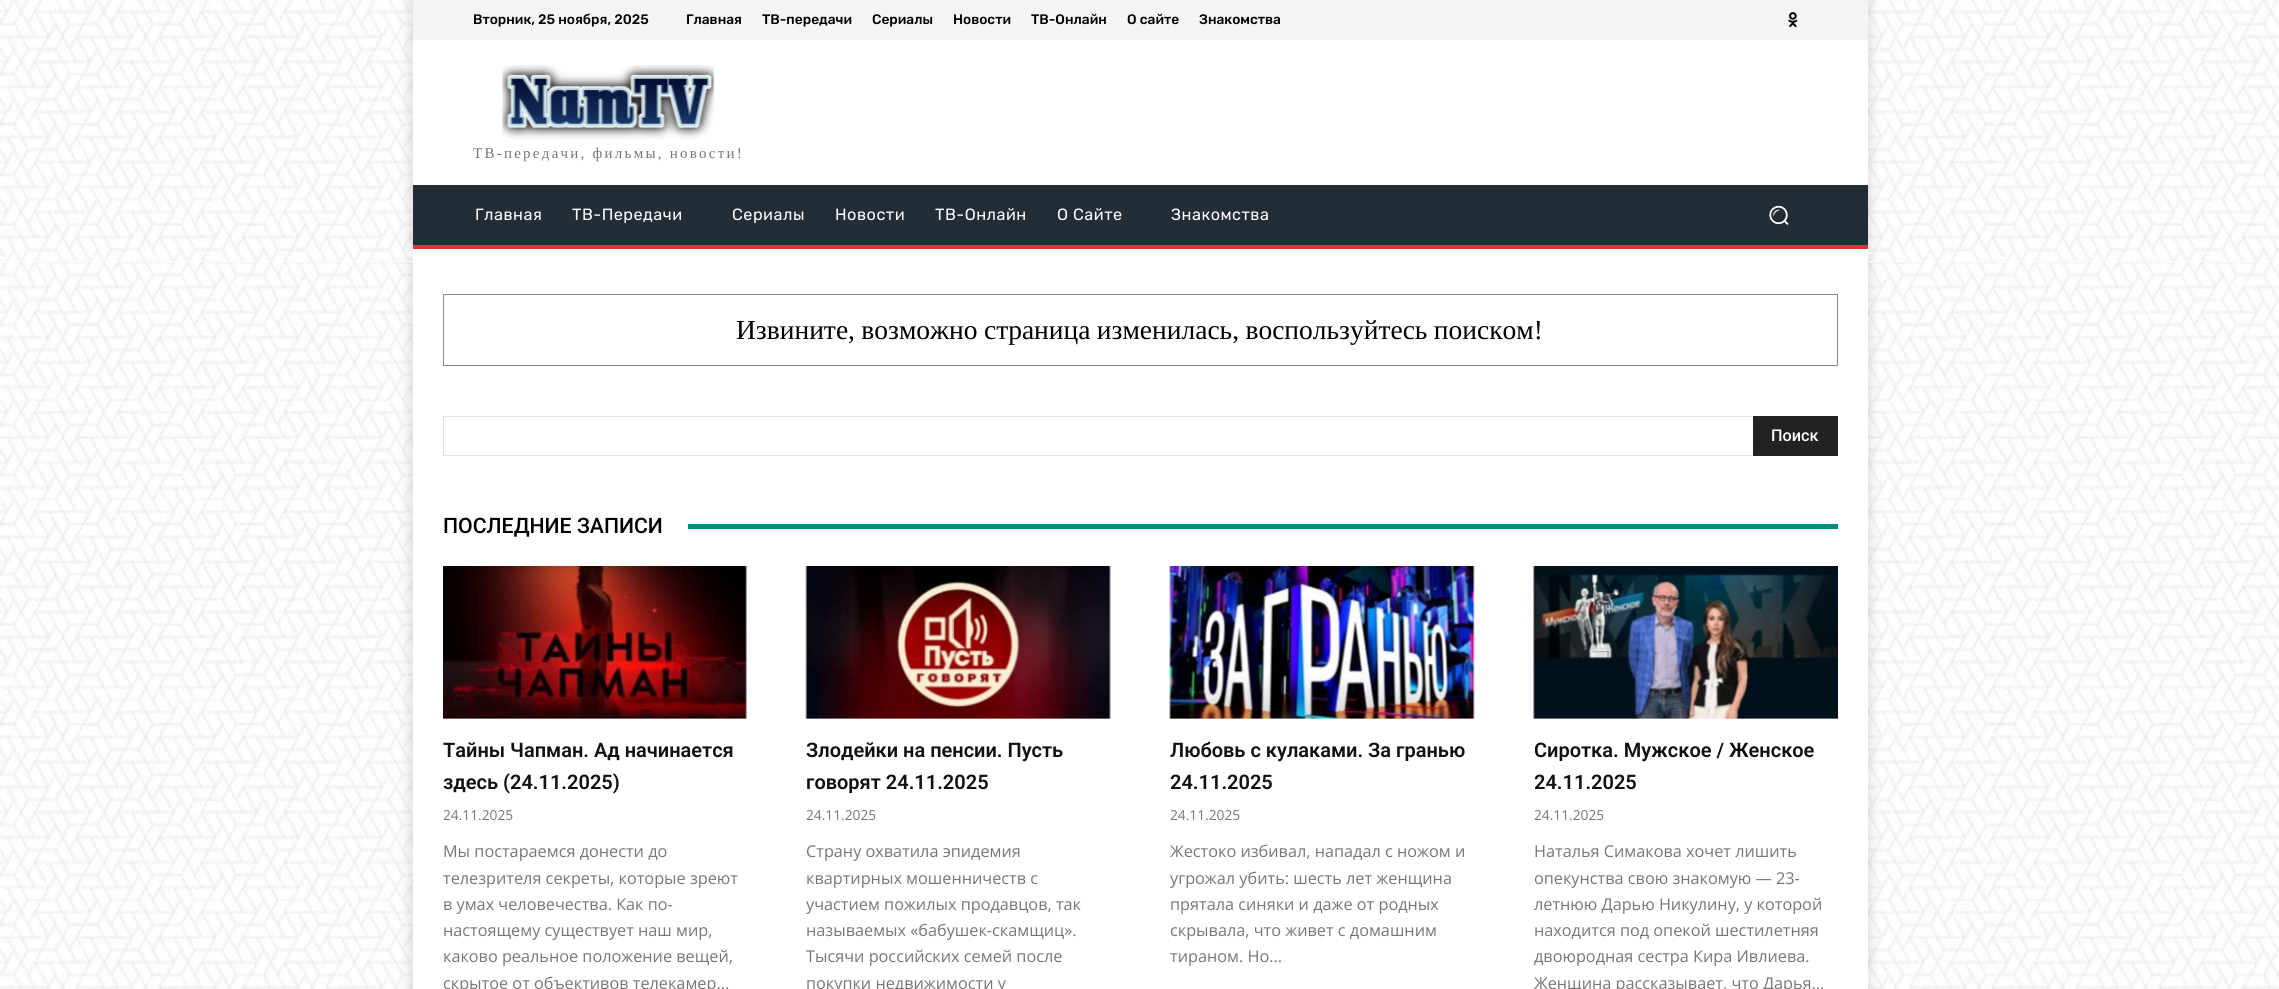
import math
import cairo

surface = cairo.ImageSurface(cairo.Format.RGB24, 2279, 989)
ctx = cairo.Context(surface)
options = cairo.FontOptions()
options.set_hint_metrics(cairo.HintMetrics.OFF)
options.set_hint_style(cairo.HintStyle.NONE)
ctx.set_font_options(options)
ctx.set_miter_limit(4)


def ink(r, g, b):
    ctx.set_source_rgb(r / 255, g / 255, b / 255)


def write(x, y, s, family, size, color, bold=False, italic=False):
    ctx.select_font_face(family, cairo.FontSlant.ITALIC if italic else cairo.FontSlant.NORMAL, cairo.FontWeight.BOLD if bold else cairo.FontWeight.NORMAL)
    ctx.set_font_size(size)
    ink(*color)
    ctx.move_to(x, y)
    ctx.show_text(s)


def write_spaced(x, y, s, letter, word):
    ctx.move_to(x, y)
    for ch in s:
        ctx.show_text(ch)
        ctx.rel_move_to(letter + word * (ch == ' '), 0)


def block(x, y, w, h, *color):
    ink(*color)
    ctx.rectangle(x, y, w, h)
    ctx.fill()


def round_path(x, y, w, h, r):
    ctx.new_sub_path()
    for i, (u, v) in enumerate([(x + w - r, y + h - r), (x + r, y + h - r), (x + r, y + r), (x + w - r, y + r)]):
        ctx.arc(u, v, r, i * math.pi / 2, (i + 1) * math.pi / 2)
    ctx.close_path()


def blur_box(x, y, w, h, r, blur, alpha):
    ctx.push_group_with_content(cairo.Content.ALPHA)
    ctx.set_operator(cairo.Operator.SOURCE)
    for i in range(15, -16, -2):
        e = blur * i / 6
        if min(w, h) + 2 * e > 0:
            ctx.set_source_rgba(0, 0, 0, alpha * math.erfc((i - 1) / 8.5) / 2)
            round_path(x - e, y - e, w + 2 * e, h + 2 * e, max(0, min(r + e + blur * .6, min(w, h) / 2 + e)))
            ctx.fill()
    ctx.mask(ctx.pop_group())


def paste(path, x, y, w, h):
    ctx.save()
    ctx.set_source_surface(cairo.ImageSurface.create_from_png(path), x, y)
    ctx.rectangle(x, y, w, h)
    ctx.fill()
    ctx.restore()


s1 = dict(family="Rubik Medium", size=13.75, color=(0, 0, 0))
s2 = dict(family="Roboto Medium", size=16.25, color=(255, 255, 255))
s3 = dict(family="Roboto Medium", size=21.25, color=(0, 0, 0))
s4 = dict(family="Roboto SemiBold", size=20, color=(17, 17, 17))
s5 = dict(family="Open Sans", size=13.75, color=(118, 118, 118))
s6 = dict(family="Open Sans", size=16.25, color=(118, 118, 118))

ink(255, 255, 255)
ctx.paint()
paste("pic1.png", 0, 0, 2279, 989)
ink(0, 0, 0)
blur_box(409, 258, 1462, 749, 0, 6, 0.12)
block(413, 262, 1455, 727, 255, 255, 255)
block(0, 261, 2279, 1, 255, 255, 255)
ink(0, 0, 0)
blur_box(409, -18, 1462, 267, 0, 6, 0.12)
block(413, 0, 1455, 40, 244, 244, 244)
write(473, 24, "Вторник, 25 ноября, 2025", **s1)
write(686, 24, "Главная", **s1)
write(762, 24, "ТВ-передачи", **s1)
write(872, 24, "Сериалы", **s1)
write(953, 24, "Новости", **s1)
write(1031, 24, "ТВ-Онлайн", **s1)
write(1127, 24, "О сайте", **s1)
write(1199, 24, "Знакомства", **s1)
paste("pic2.png", 1788, 12, 10, 16)
block(413, 40, 1455, 221, 255, 255, 255)
paste("pic3.png", 502, 65, 213, 74)
ctx.select_font_face("Liberation Serif")
ctx.set_font_size(15)
ink(118, 118, 118)
write_spaced(473, 158, "ТВ-передачи, фильмы, новости!", 2.25, 0)
block(413, 185, 1455, 60, 35, 45, 53)
ctx.select_font_face("Rubik")
ctx.set_font_size(16.25)
ink(255, 255, 255)
write_spaced(475, 220, "Главная", 0.5, 0)
write_spaced(572, 220, "ТВ-Передачи", 0.5, 0)
write_spaced(732, 220, "Сериалы", 0.5, 0)
write_spaced(835, 220, "Новости", 0.5, 0)
write_spaced(935, 220, "ТВ-Онлайн", 0.5, 0)
write_spaced(1057, 220, "О Сайте", 0.5, 0)
write_spaced(1171, 220, "Знакомства", 0.5, 0)
paste("pic4.png", 1769, 205, 20, 20)
block(413, 245, 1455, 4, 221, 51, 51)
ctx.rectangle(443.5, 294.5, 1394, 71)
ink(136, 136, 136)
ctx.set_line_width(1)
ctx.stroke()
ctx.select_font_face("Liberation Serif")
ctx.set_font_size(27.5)
ink(0, 0, 0)
write_spaced(736, 339, "Извините, возможно страница изменилась, воспользуйтесь поиском!", 0, -0.5)
ctx.rectangle(443.5, 416.5, 1394, 39)
ink(225, 225, 225)
ctx.stroke()
block(1753, 416, 85, 40, 34, 34, 34)
write(1771, 441, "Поиск", **s2)
write(443, 533, "ПОСЛЕДНИЕ ЗАПИСИ", **s3)
block(688, 524, 1150, 5, 0, 141, 127)
paste("pic5.png", 443, 566, 304, 153)
write(443, 757, "Тайны Чапман. Ад начинается", **s4)
write(443, 789, "здесь (24.11.2025)", **s4)
write(443, 820, "24.11.2025", **s5)
write(443, 857, "Мы постараемся донести до", **s6)
write(443, 884, "телезрителя секреты, которые зреют", **s6)
write(443, 910, "в умах человечества. Как по-", **s6)
write(443, 936, "настоящему существует наш мир,", **s6)
write(443, 962, "каково реальное положение вещей,", **s6)
write(443, 989, "скрытое от объективов телекамер...", **s6)
paste("pic6.png", 805, 566, 306, 153)
write(806, 757, "Злодейки на пенсии. Пусть", **s4)
write(806, 789, "говорят 24.11.2025", **s4)
write(806, 820, "24.11.2025", **s5)
write(806, 857, "Страну охватила эпидемия", **s6)
write(806, 884, "квартирных мошенничеств с", **s6)
write(806, 910, "участием пожилых продавцов, так", **s6)
write(806, 936, "называемых «бабушек-скамщиц».", **s6)
write(806, 962, "Тысячи российских семей после", **s6)
write(806, 989, "покупки недвижимости у", **s6)
paste("pic7.png", 1169, 566, 306, 153)
write(1170, 757, "Любовь с кулаками. За гранью", **s4)
write(1170, 789, "24.11.2025", **s4)
write(1170, 820, "24.11.2025", **s5)
write(1170, 857, "Жестоко избивал, нападал с ножом и", **s6)
write(1170, 884, "угрожал убить: шесть лет женщина", **s6)
write(1170, 910, "прятала синяки и даже от родных", **s6)
write(1170, 936, "скрывала, что живет с домашним", **s6)
write(1170, 962, "тираном. Но...", **s6)
paste("pic8.png", 1533, 566, 305, 153)
write(1534, 757, "Сиротка. Мужское / Женское", **s4)
write(1534, 789, "24.11.2025", **s4)
write(1534, 820, "24.11.2025", **s5)
write(1534, 857, "Наталья Симакова хочет лишить", **s6)
write(1534, 884, "опекунства свою знакомую — 23-", **s6)
write(1534, 910, "летнюю Дарью Никулину, у которой", **s6)
write(1534, 936, "находится под опекой шестилетняя", **s6)
write(1534, 962, "двоюродная сестра Кира Ивлиева.", **s6)
write(1534, 989, "Женщина рассказывает, что Дарья...", **s6)
surface.write_to_png("screenshot.png")
